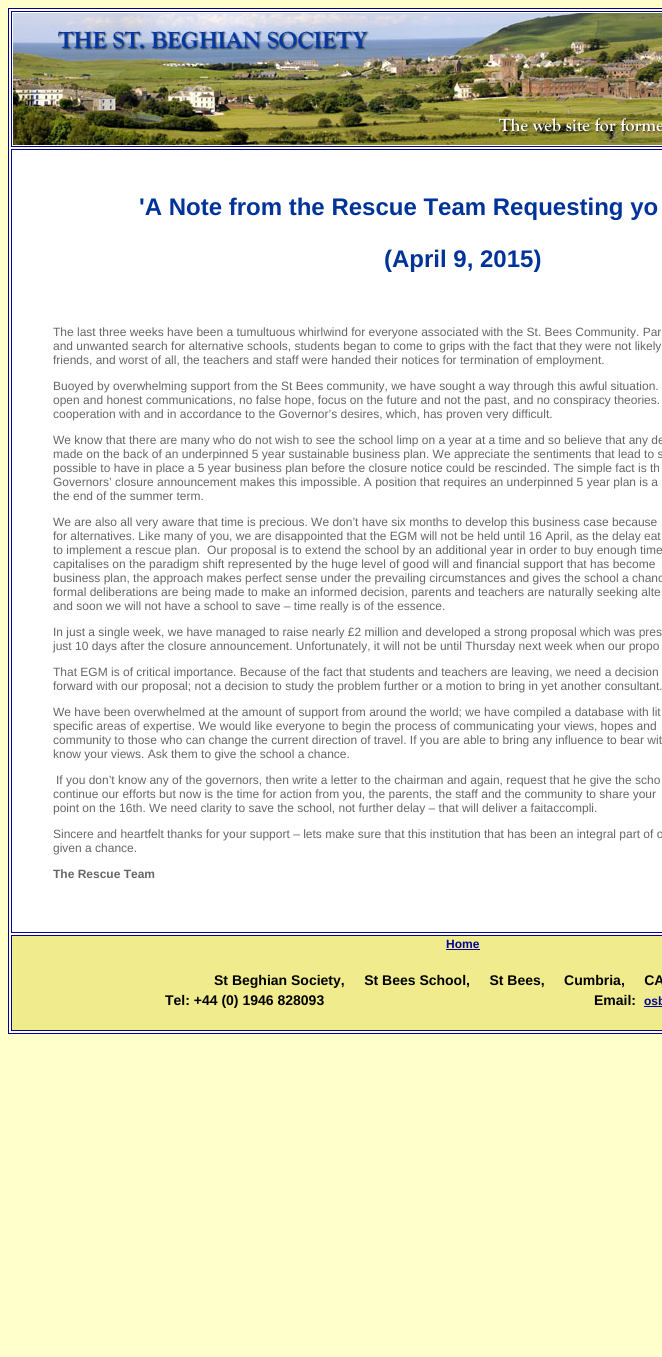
import math
import cairo

surface = cairo.ImageSurface(cairo.Format.RGB24, 662, 1357)
ctx = cairo.Context(surface)
options = cairo.FontOptions()
options.set_hint_metrics(cairo.HintMetrics.OFF)
options.set_hint_style(cairo.HintStyle.NONE)
ctx.set_font_options(options)
ctx.set_miter_limit(4)


def ink(r, g, b):
    ctx.set_source_rgb(r / 255, g / 255, b / 255)


def write(x, y, s, family, size, color, bold=False, italic=False):
    ctx.select_font_face(family, cairo.FontSlant.ITALIC if italic else cairo.FontSlant.NORMAL, cairo.FontWeight.BOLD if bold else cairo.FontWeight.NORMAL)
    ctx.set_font_size(size)
    ink(*color)
    ctx.move_to(x, y)
    ctx.show_text(s)


def block(x, y, w, h, *color):
    ink(*color)
    ctx.rectangle(x, y, w, h)
    ctx.fill()


def paste(path, x, y, w, h):
    ctx.save()
    ctx.set_source_surface(cairo.ImageSurface.create_from_png(path), x, y)
    ctx.rectangle(x, y, w, h)
    ctx.fill()
    ctx.restore()


s1 = dict(family="Liberation Sans", size=24, color=(0, 51, 153), bold=True)
s2 = dict(family="Liberation Sans", size=12, color=(102, 102, 102))
s3 = dict(family="Liberation Sans", size=12, color=(102, 102, 102), bold=True)
s4 = dict(family="Liberation Sans", size=12, color=(0, 0, 153), bold=True)
s5 = dict(family="Liberation Sans", size=14, color=(0, 0, 0), bold=True)

ink(255, 255, 204)
ctx.paint()
ink(255, 255, 255)
ctx.rectangle(8.5, 8.5, 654, 1025)
ctx.fill_preserve()
ink(0, 0, 153)
ctx.set_line_width(1)
ctx.stroke()
ctx.rectangle(11.5, 11.5, 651, 135)
ctx.stroke()
paste("pic1.png", 13, 13, 649, 132)
ctx.rectangle(11.5, 149.5, 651, 783)
ctx.stroke()
write(139, 215, "'A Note from the Rescue Team Requesting yo", **s1)
write(384, 267, "(April 9, 2015)", **s1)
write(53, 336, "The last three weeks have been a tumultuous whirlwind for everyone associated with the St. Bees Community. Par", **s2)
write(53, 350, "and unwanted search for alternative schools, students began to come to grips with the fact that they were not likely", **s2)
write(53, 364, "friends, and worst of all, the teachers and staff were handed their notices for termination of employment.", **s2)
write(53, 390, "Buoyed by overwhelming support from the St Bees community, we have sought a way through this awful situation.", **s2)
write(53, 404, "open and honest communications, no false hope, focus on the future and not the past, and no conspiracy theories.", **s2)
write(53, 418, "cooperation with and in accordance to the Governor’s desires, which, has proven very difficult.", **s2)
write(53, 444, "We know that there are many who do not wish to see the school limp on a year at a time and so believe that any de", **s2)
write(53, 458, "made on the back of an underpinned 5 year sustainable business plan. We appreciate the sentiments that lead to s", **s2)
write(53, 472, "possible to have in place a 5 year business plan before the closure notice could be rescinded. The simple fact is th", **s2)
write(53, 486, "Governors’ closure announcement makes this impossible. A position that requires an underpinned 5 year plan is a", **s2)
write(53, 500, "the end of the summer term.", **s2)
write(53, 526, "We are also all very aware that time is precious. We don’t have six months to develop this business case because", **s2)
write(53, 540, "for alternatives. Like many of you, we are disappointed that the EGM will not be held until 16 April, as the delay eat", **s2)
write(53, 554, "to implement a rescue plan.  Our proposal is to extend the school by an additional year in order to buy enough time", **s2)
write(53, 568, "capitalises on the paradigm shift represented by the huge level of good will and financial support that has become", **s2)
write(53, 582, "business plan, the approach makes perfect sense under the prevailing circumstances and gives the school a chanc", **s2)
write(53, 596, "formal deliberations are being made to make an informed decision, parents and teachers are naturally seeking alte", **s2)
write(53, 610, "and soon we will not have a school to save – time really is of the essence.", **s2)
write(53, 636, "In just a single week, we have managed to raise nearly £2 million and developed a strong proposal which was pres", **s2)
write(53, 650, "just 10 days after the closure announcement. Unfortunately, it will not be until Thursday next week when our propo", **s2)
write(53, 676, "That EGM is of critical importance. Because of the fact that students and teachers are leaving, we need a decision", **s2)
write(53, 690, "forward with our proposal; not a decision to study the problem further or a motion to bring in yet another consultant.", **s2)
write(53, 716, "We have been overwhelmed at the amount of support from around the world; we have compiled a database with lit", **s2)
write(53, 730, "specific areas of expertise. We would like everyone to begin the process of communicating your views, hopes and", **s2)
write(53, 744, "community to those who can change the current direction of travel. If you are able to bring any influence to bear wit", **s2)
write(53, 758, "know your views. Ask them to give the school a chance.", **s2)
write(56, 784, "If you don’t know any of the governors, then write a letter to the chairman and again, request that he give the scho", **s2)
write(53, 798, "continue our efforts but now is the time for action from you, the parents, the staff and the community to share your", **s2)
write(53, 812, "point on the 16th. We need clarity to save the school, not further delay – that will deliver a faitaccompli.", **s2)
write(53, 838, "Sincere and heartfelt thanks for your support – lets make sure that this institution that has been an integral part of o", **s2)
write(53, 852, "given a chance.", **s2)
write(53, 878, "The Rescue Team", **s3)
ink(240, 235, 140)
ctx.rectangle(11.5, 935.5, 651, 95)
ctx.fill_preserve()
ink(0, 0, 153)
ctx.stroke()
write(446, 948, "Home", **s4)
block(446, 949, 34, 1, 0, 0, 153)
write(214, 985, "St Beghian Society,     St Bees School,     St Bees,     Cumbria,     CA", **s5)
write(165, 1005, "Tel: +44 (0) 1946 828093", **s5)
write(594, 1005, "Email:", **s5)
write(644, 1005, "osb", **s4)
block(644, 1006, 18, 1, 0, 0, 153)
surface.write_to_png("screenshot.png")
